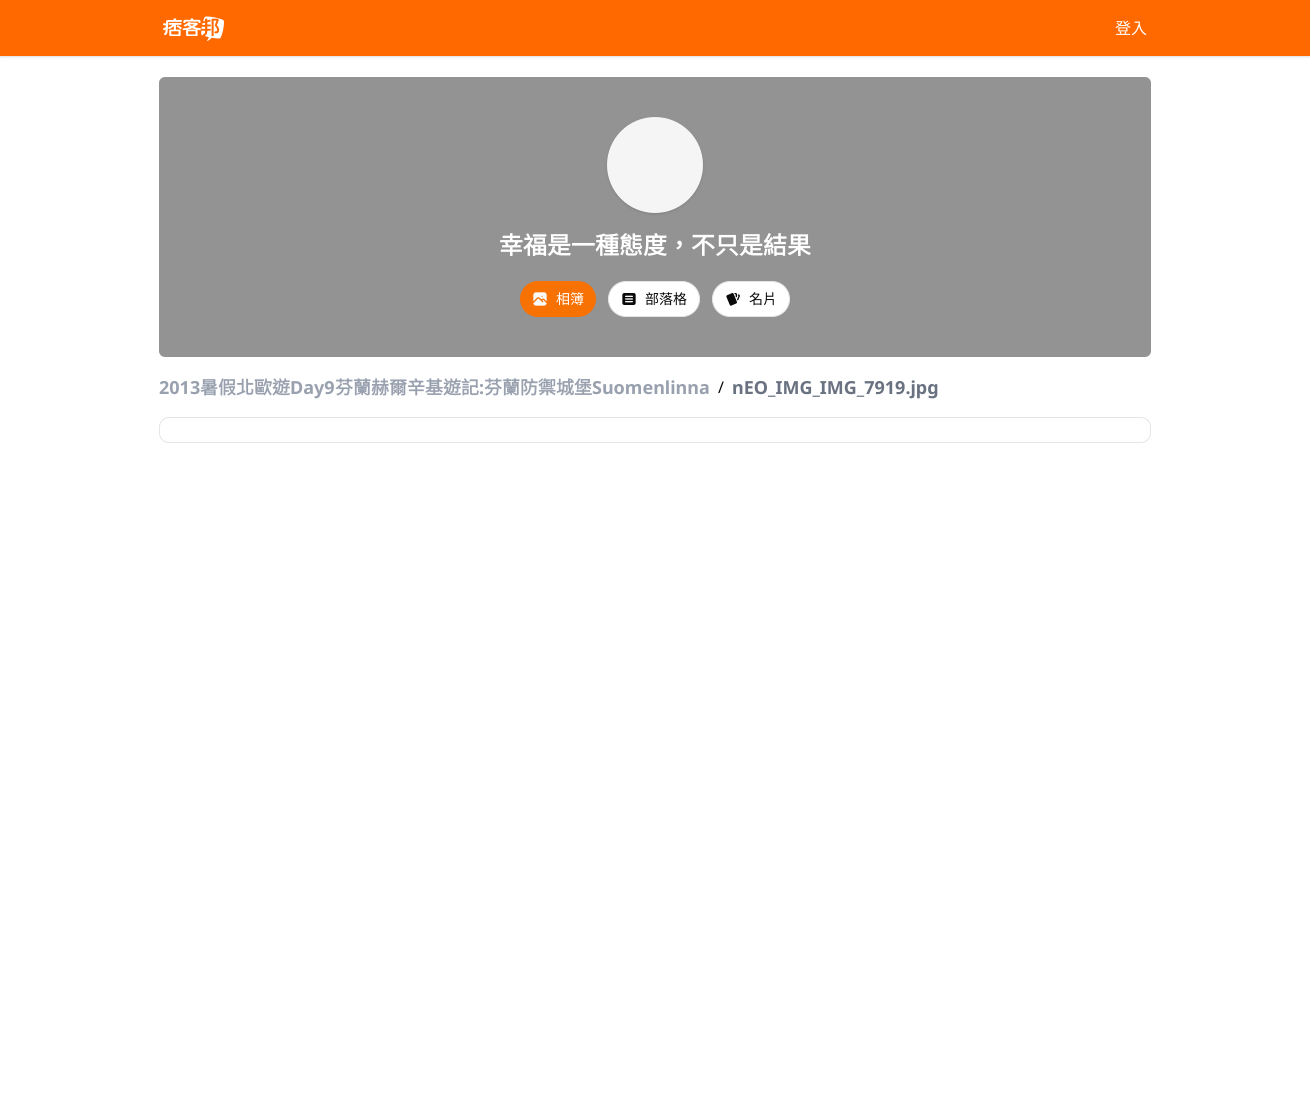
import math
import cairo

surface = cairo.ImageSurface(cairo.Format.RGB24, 1310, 1109)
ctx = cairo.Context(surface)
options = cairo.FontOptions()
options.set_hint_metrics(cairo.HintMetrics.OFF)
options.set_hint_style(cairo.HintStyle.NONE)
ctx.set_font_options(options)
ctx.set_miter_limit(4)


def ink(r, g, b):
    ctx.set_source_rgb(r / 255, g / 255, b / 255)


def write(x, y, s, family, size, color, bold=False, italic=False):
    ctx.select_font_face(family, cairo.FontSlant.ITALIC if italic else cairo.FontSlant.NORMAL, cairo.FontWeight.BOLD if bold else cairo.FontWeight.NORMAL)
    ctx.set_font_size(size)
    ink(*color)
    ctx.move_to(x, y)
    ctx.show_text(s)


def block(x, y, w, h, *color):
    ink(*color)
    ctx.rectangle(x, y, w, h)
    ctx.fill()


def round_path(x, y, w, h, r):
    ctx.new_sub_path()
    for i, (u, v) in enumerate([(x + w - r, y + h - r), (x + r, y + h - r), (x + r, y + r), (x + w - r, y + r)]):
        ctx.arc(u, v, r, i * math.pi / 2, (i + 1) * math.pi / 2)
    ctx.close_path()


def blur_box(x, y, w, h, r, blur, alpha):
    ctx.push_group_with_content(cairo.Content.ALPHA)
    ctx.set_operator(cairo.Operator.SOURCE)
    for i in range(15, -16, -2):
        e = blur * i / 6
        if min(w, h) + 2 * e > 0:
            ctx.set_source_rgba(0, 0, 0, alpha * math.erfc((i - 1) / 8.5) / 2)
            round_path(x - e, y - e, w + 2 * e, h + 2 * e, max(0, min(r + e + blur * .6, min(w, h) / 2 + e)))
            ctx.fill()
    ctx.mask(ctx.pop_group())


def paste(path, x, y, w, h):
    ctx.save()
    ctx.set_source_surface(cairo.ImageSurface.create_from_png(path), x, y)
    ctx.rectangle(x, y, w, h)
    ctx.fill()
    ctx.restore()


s1 = dict(family="Noto Sans CJK TC", size=16, color=(255, 255, 255))
s2 = dict(family="Noto Sans CJK TC", size=24, color=(255, 255, 255), bold=True)
s3 = dict(family="Noto Sans CJK TC", size=14, color=(255, 255, 255))
s4 = dict(family="Noto Sans CJK TC", size=14, color=(10, 10, 10))
s5 = dict(family="Noto Sans", size=18, color=(153, 161, 175), bold=True)
s6 = dict(family="Noto Sans CJK TC", size=18, color=(153, 161, 175), bold=True)
s7 = dict(family="Noto Sans", size=16, color=(10, 10, 10))
s8 = dict(family="Noto Sans", size=18, color=(106, 114, 130), bold=True)

ink(255, 255, 255)
ctx.paint()
ink(0, 0, 0)
blur_box(1, 2, 1308, 54, 0, 1, 0.1)
blur_box(0, 1, 1310, 56, 0, 1.5, 0.1)
block(0, 0, 1310, 56, 255, 105, 0)
paste("pic1.png", 163, 16, 61, 25)
write(1115, 34, "登入", **s1)
ink(147, 147, 147)
round_path(159, 77, 992, 280, 6)
ctx.fill()
ink(0, 0, 0)
blur_box(608, 119, 94, 94, 47, 1, 0.1)
blur_box(607, 118, 96, 96, 48, 1.5, 0.1)
ink(245, 245, 245)
ctx.arc(655, 165, 48, 0, 2 * math.pi)
ctx.fill()
write(499, 254, "幸福是一種態度，不只是結果", **s2)
ink(248, 113, 3)
round_path(520, 281, 76, 36, 18)
ctx.fill()
paste("pic2.png", 533, 292, 14, 14)
write(556, 304, "相簿", **s3)
round_path(608.5, 281.5, 91, 35, 17.5)
ctx.fill_preserve()
ink(229, 229, 229)
ctx.set_line_width(1)
ctx.stroke()
paste("pic3.png", 622, 293, 14, 12)
write(645, 304, "部落格", **s4)
ink(255, 255, 255)
round_path(712.5, 281.5, 77, 35, 17.5)
ctx.fill_preserve()
ink(229, 229, 229)
ctx.stroke()
paste("pic4.png", 726, 293, 14, 13)
write(749, 304, "名片", **s4)
write(159, 394, "2013", **s5)
write(200, 394, "暑假北歐遊", **s6)
write(290, 394, "Day9", **s5)
write(335, 394, "芬蘭赫爾辛基遊記", **s6)
write(479, 394, ":", **s5)
write(484, 394, "芬蘭防禦城堡", **s6)
write(592, 394, "Suomenlinna", **s5)
write(718, 393, "/", **s7)
write(732, 394, "nEO_IMG_IMG_7919.jpg", **s8)
round_path(159.5, 417.5, 991, 25, 9.5)
ink(229, 229, 229)
ctx.stroke()
surface.write_to_png("screenshot.png")
